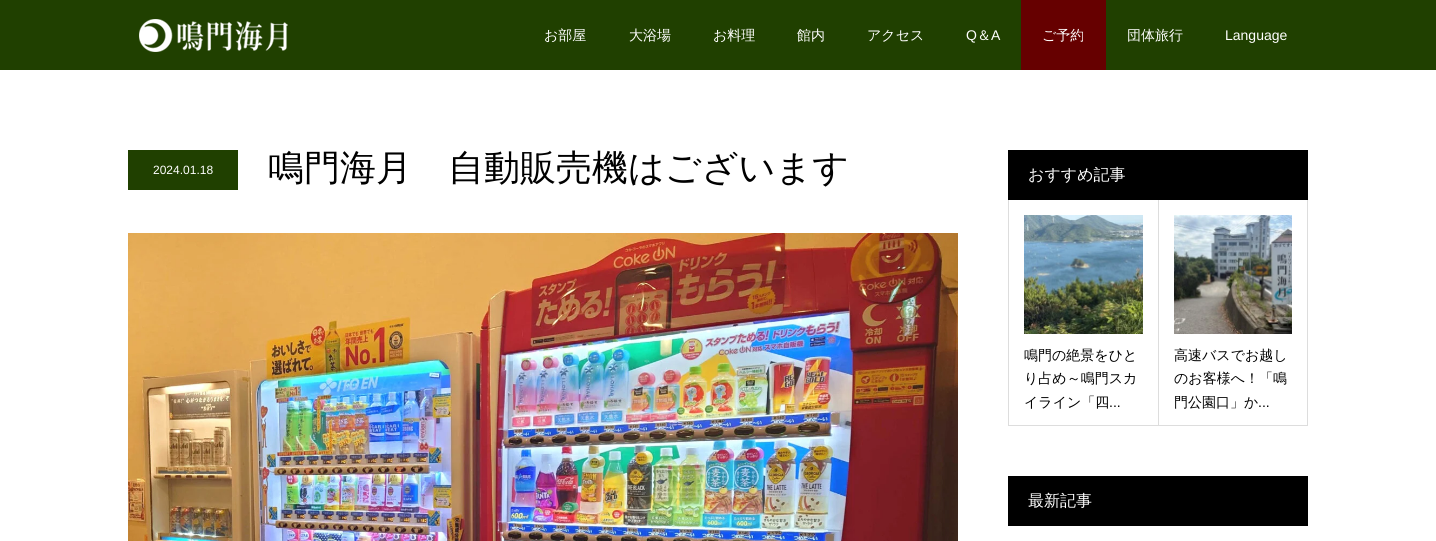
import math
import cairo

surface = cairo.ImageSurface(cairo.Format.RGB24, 1436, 541)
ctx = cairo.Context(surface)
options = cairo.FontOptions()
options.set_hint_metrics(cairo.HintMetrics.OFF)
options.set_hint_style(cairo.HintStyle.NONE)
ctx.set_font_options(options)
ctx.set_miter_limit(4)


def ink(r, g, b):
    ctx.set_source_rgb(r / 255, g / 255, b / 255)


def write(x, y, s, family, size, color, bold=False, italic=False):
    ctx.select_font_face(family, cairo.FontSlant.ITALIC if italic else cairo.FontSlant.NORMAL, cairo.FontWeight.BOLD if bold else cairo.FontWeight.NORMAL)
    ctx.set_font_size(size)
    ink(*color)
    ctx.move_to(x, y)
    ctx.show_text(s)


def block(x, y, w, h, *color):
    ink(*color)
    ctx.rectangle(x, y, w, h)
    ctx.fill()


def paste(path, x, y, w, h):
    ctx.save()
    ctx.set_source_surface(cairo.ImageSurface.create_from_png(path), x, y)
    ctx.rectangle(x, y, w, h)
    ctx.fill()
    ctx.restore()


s1 = dict(family="WenQuanYi Zen Hei Medium", size=14, color=(255, 255, 255))
s2 = dict(family="Liberation Sans", size=14, color=(255, 255, 255))
s3 = dict(family="Liberation Sans", size=12, color=(255, 255, 255))
s4 = dict(family="WenQuanYi Zen Hei Medium", size=36, color=(0, 0, 0))
s5 = dict(family="WenQuanYi Zen Hei Medium", size=16, color=(255, 255, 255))
s6 = dict(family="WenQuanYi Zen Hei Medium", size=14, color=(0, 0, 0))
s7 = dict(family="Liberation Sans", size=14, color=(0, 0, 0))

ink(255, 255, 255)
ctx.paint()
block(0, 0, 1436, 70, 32, 64, 0)
paste("pic1.png", 139, 19, 149, 33)
write(544, 40, "お部屋", **s1)
write(629, 40, "大浴場", **s1)
write(713, 40, "お料理", **s1)
write(797, 40, "館内", **s1)
write(867, 40, "アクセス", **s1)
write(966, 40, "Q", **s2)
write(977, 40, "＆", **s1)
write(991, 40, "A", **s2)
block(1021, 0, 85, 70, 102, 0, 0)
write(1042, 40, "ご予約", **s1)
write(1127, 40, "団体旅行", **s1)
write(1225, 40, "Language", **s2)
block(128, 150, 110, 40, 32, 64, 0)
write(153, 174, "2024.01.18", **s3)
write(268, 180, "鳴門海月　自動販売機はございます", **s4)
paste("pic2.png", 128, 233, 830, 308)
ctx.rectangle(1008.5, 199.5, 150, 226)
ink(221, 221, 221)
ctx.set_line_width(1)
ctx.stroke()
ctx.rectangle(1158.5, 199.5, 149, 226)
ctx.stroke()
block(1008, 150, 300, 50, 0, 0, 0)
write(1028, 180, "おすすめ記事", **s5)
paste("pic3.png", 1024, 215, 119, 119)
write(1024, 360, "鳴門の絶景をひと", **s6)
write(1024, 383, "り占め～鳴門スカ", **s6)
write(1024, 407, "イライン「四", **s6)
write(1109, 407, "...", **s7)
paste("pic4.png", 1174, 215, 118, 119)
write(1174, 360, "高速バスでお越し", **s6)
write(1174, 383, "のお客様へ！「鳴", **s6)
write(1174, 407, "門公園口」か", **s6)
write(1258, 407, "...", **s7)
block(1008, 476, 300, 50, 0, 0, 0)
write(1028, 506, "最新記事", **s5)
surface.write_to_png("screenshot.png")
